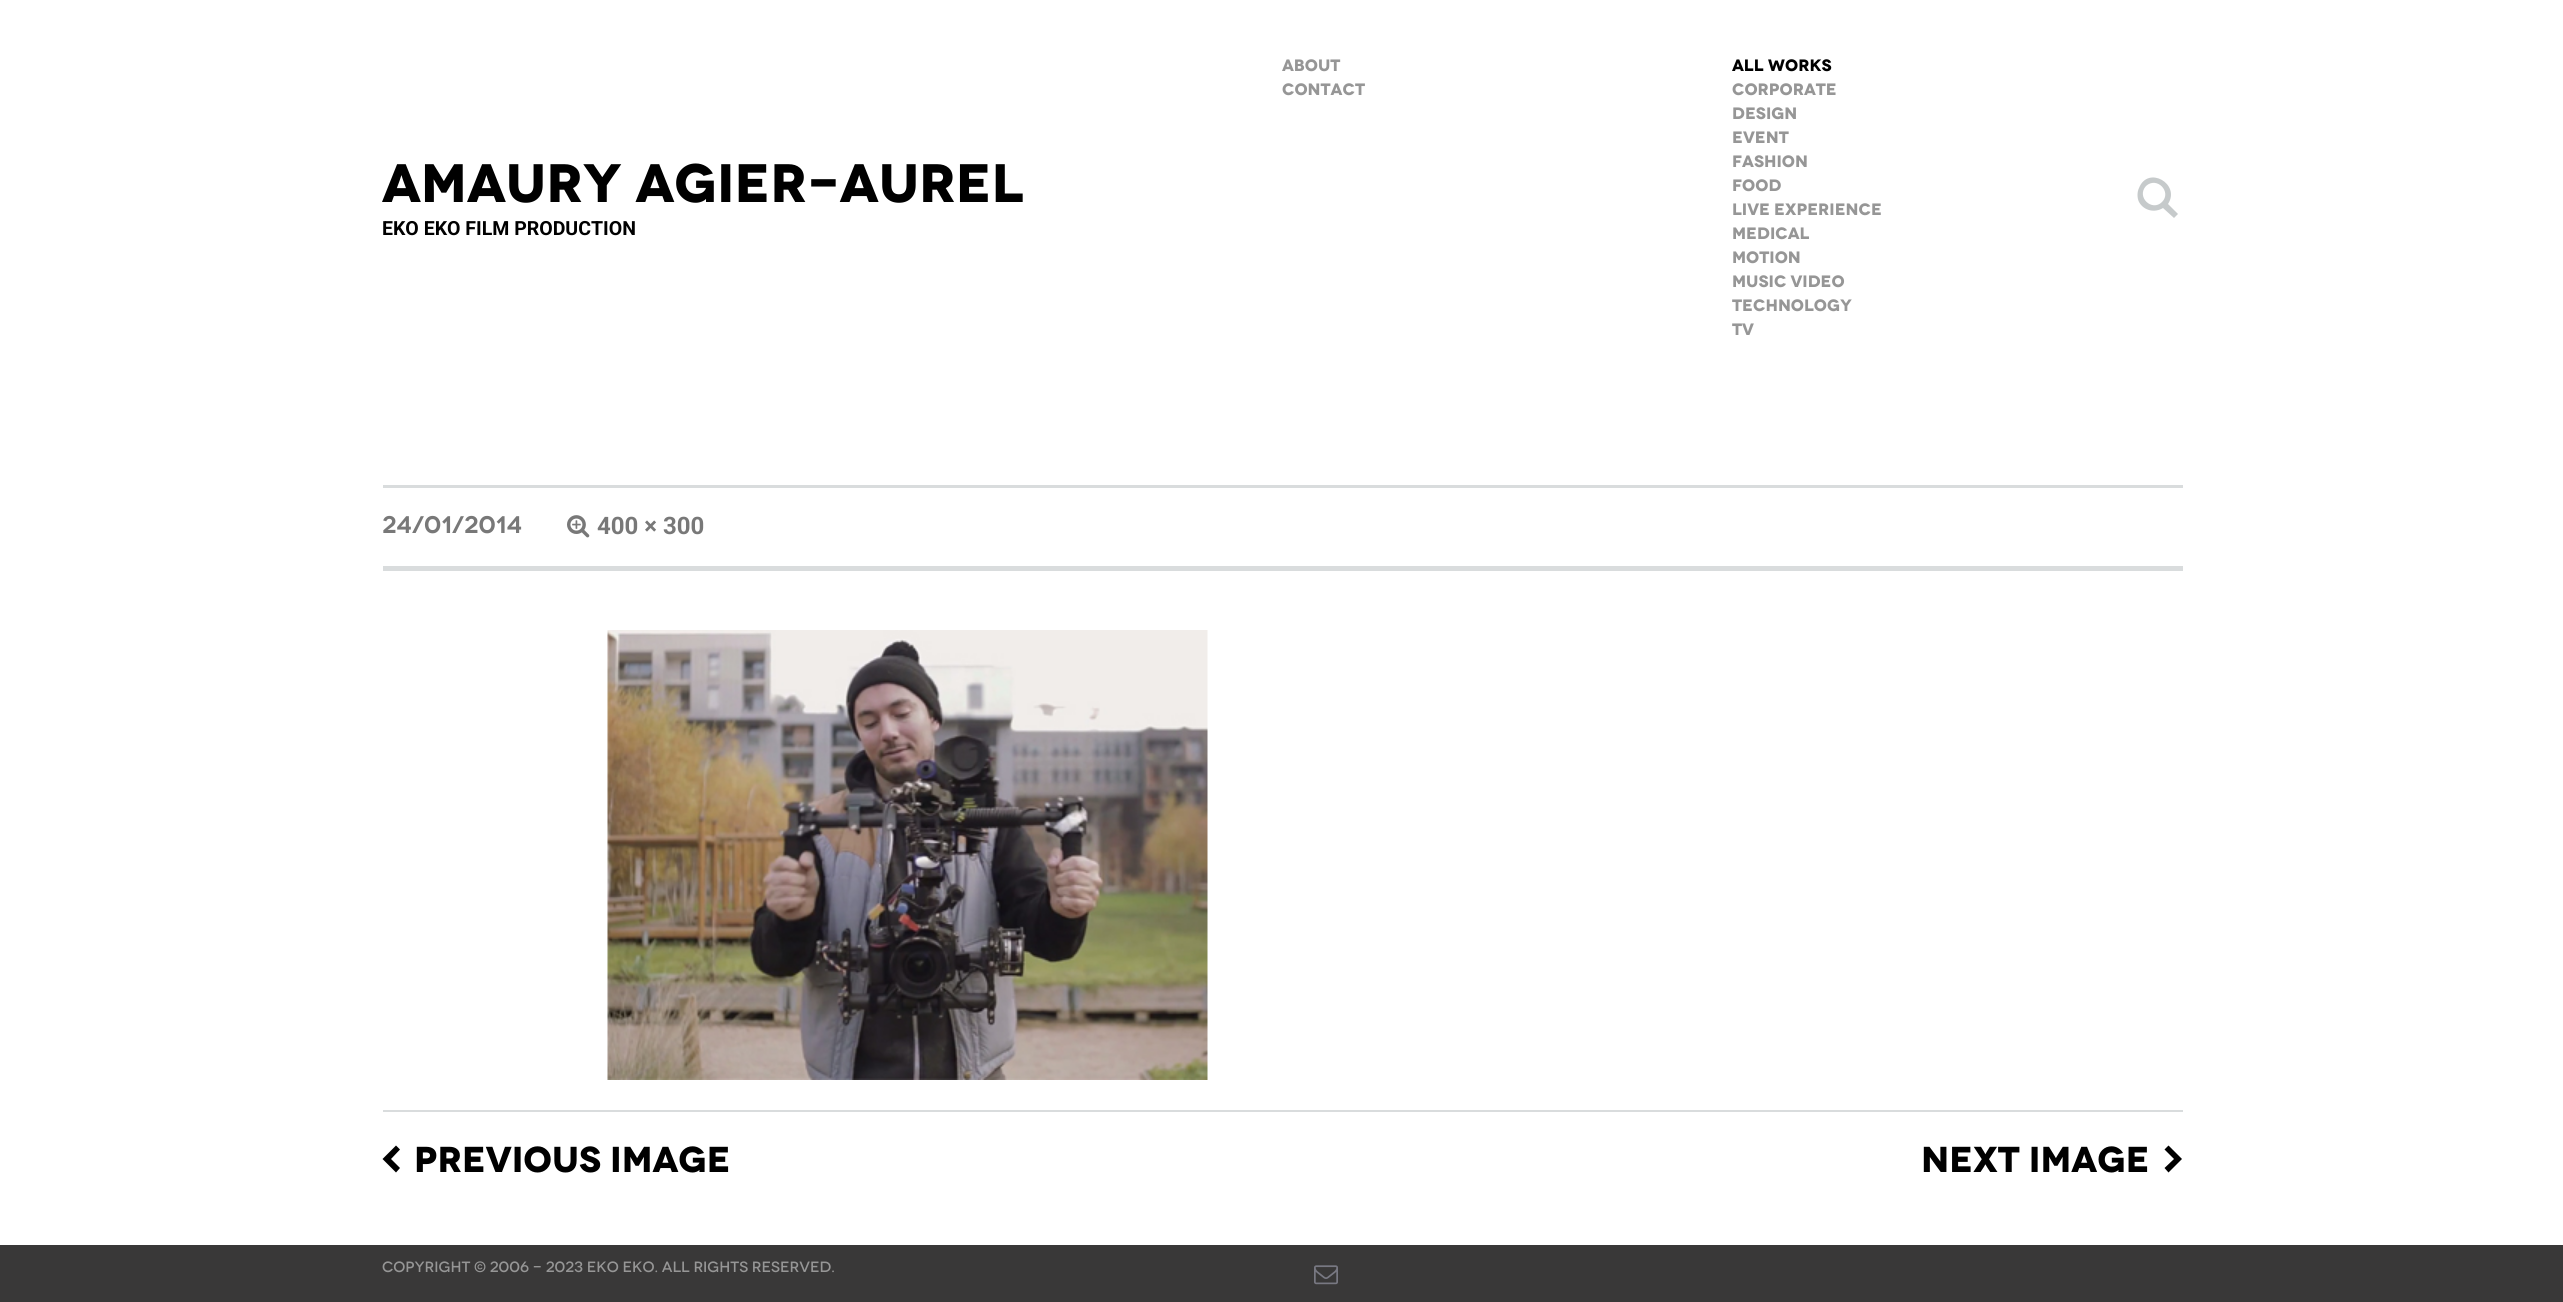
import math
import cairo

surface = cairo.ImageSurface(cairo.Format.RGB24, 2563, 1302)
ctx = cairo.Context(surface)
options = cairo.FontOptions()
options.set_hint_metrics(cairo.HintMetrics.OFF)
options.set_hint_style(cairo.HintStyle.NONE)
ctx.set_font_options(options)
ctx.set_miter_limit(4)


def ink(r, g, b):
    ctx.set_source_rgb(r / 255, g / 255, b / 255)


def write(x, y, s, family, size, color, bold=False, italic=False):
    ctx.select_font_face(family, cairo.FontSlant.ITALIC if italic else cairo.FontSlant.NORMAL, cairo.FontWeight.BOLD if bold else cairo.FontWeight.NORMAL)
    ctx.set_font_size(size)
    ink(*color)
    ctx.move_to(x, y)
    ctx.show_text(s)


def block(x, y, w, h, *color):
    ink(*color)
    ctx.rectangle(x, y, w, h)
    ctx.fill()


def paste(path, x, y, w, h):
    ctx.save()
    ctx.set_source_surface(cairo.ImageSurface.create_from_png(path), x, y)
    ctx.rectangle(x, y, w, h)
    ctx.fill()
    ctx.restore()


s1 = dict(family="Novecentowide", size=54, color=(0, 0, 0), bold=True)
s2 = dict(family="Roboto", size=19.5, color=(0, 0, 0), bold=True)
s3 = dict(family="Novecentowide", size=16.5, color=(150, 150, 150), bold=True)
s4 = dict(family="Novecentowide", size=16.5, color=(0, 0, 0), bold=True)
s5 = dict(family="Novecentowide SemiBold", size=24, color=(120, 120, 120))
s6 = dict(family="Roboto", size=24, color=(120, 120, 120), bold=True)
s7 = dict(family="Novecentowide", size=36, color=(0, 0, 0), bold=True)
s8 = dict(family="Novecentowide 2 SemiBold", size=14.9, color=(150, 150, 150))

ink(255, 255, 255)
ctx.paint()
write(382, 202, "AMAURY AGIER-AUREL", **s1)
write(382, 235, "EKO EKO FILM PRODUCTION", **s2)
write(1282, 71, "ABOUT", **s3)
write(1282, 95, "CONTACT", **s3)
write(1732, 71, "All Works", **s4)
write(1732, 95, "corporate", **s3)
write(1732, 119, "Design", **s3)
write(1732, 143, "event", **s3)
write(1732, 167, "Fashion", **s3)
write(1732, 191, "Food", **s3)
write(1732, 215, "Live experience", **s3)
write(1732, 239, "Medical", **s3)
write(1732, 263, "Motion", **s3)
write(1732, 287, "music video", **s3)
write(1732, 311, "Technology", **s3)
write(1732, 335, "TV", **s3)
ink(198, 202, 203)
ctx.new_path()
ctx.move_to(2162, 202)
ctx.curve_to(2172, 192, 2157, 176, 2146, 186)
ctx.curve_to(2136, 197, 2152, 212, 2162, 202)
ctx.close_path()
ctx.move_to(2168, 204)
ctx.line_to(2178, 214)
ctx.line_to(2174, 218)
ctx.line_to(2163, 208)
ctx.curve_to(2155, 213, 2144, 211, 2139, 202)
ctx.curve_to(2137, 198, 2137, 192, 2139, 188)
ctx.curve_to(2148, 165, 2181, 184, 2168, 204)
ctx.close_path()
ctx.fill()
block(383, 485, 1800, 3, 217, 220, 221)
block(383, 566, 1800, 5, 217, 220, 221)
write(382, 533, "24/01/2014", **s5)
paste("pic1.png", 567, 515, 23, 23)
write(597, 534, "400 × 300", **s6)
paste("pic2.png", 607, 630, 601, 450)
block(383, 1110, 1800, 2, 217, 220, 221)
ink(0, 0, 0)
ctx.new_path()
ctx.move_to(391, 1159)
ctx.line_to(400, 1168)
ctx.line_to(396, 1172.5)
ctx.line_to(382.5, 1159)
ctx.line_to(396, 1145.5)
ctx.line_to(400, 1149.5)
ctx.close_path()
ctx.fill()
write(414, 1172, "PREVIOUS IMAGE", **s7)
write(1921, 1172, "NEXT IMAGE", **s7)
ctx.new_path()
ctx.move_to(2168.5, 1145.5)
ctx.line_to(2182, 1159)
ctx.line_to(2168.5, 1172.5)
ctx.line_to(2164.5, 1168)
ctx.line_to(2174, 1159)
ctx.line_to(2164.5, 1149.5)
ctx.close_path()
ctx.fill()
block(0, 1245, 2563, 57, 57, 56, 56)
write(382, 1272, "COPYRIGHT © 2006 - 2023 EKO EKO. ALL RIGHTS RESERVED.", **s8)
paste("pic3.png", 1314, 1265, 24, 20)
surface.write_to_png("screenshot.png")
